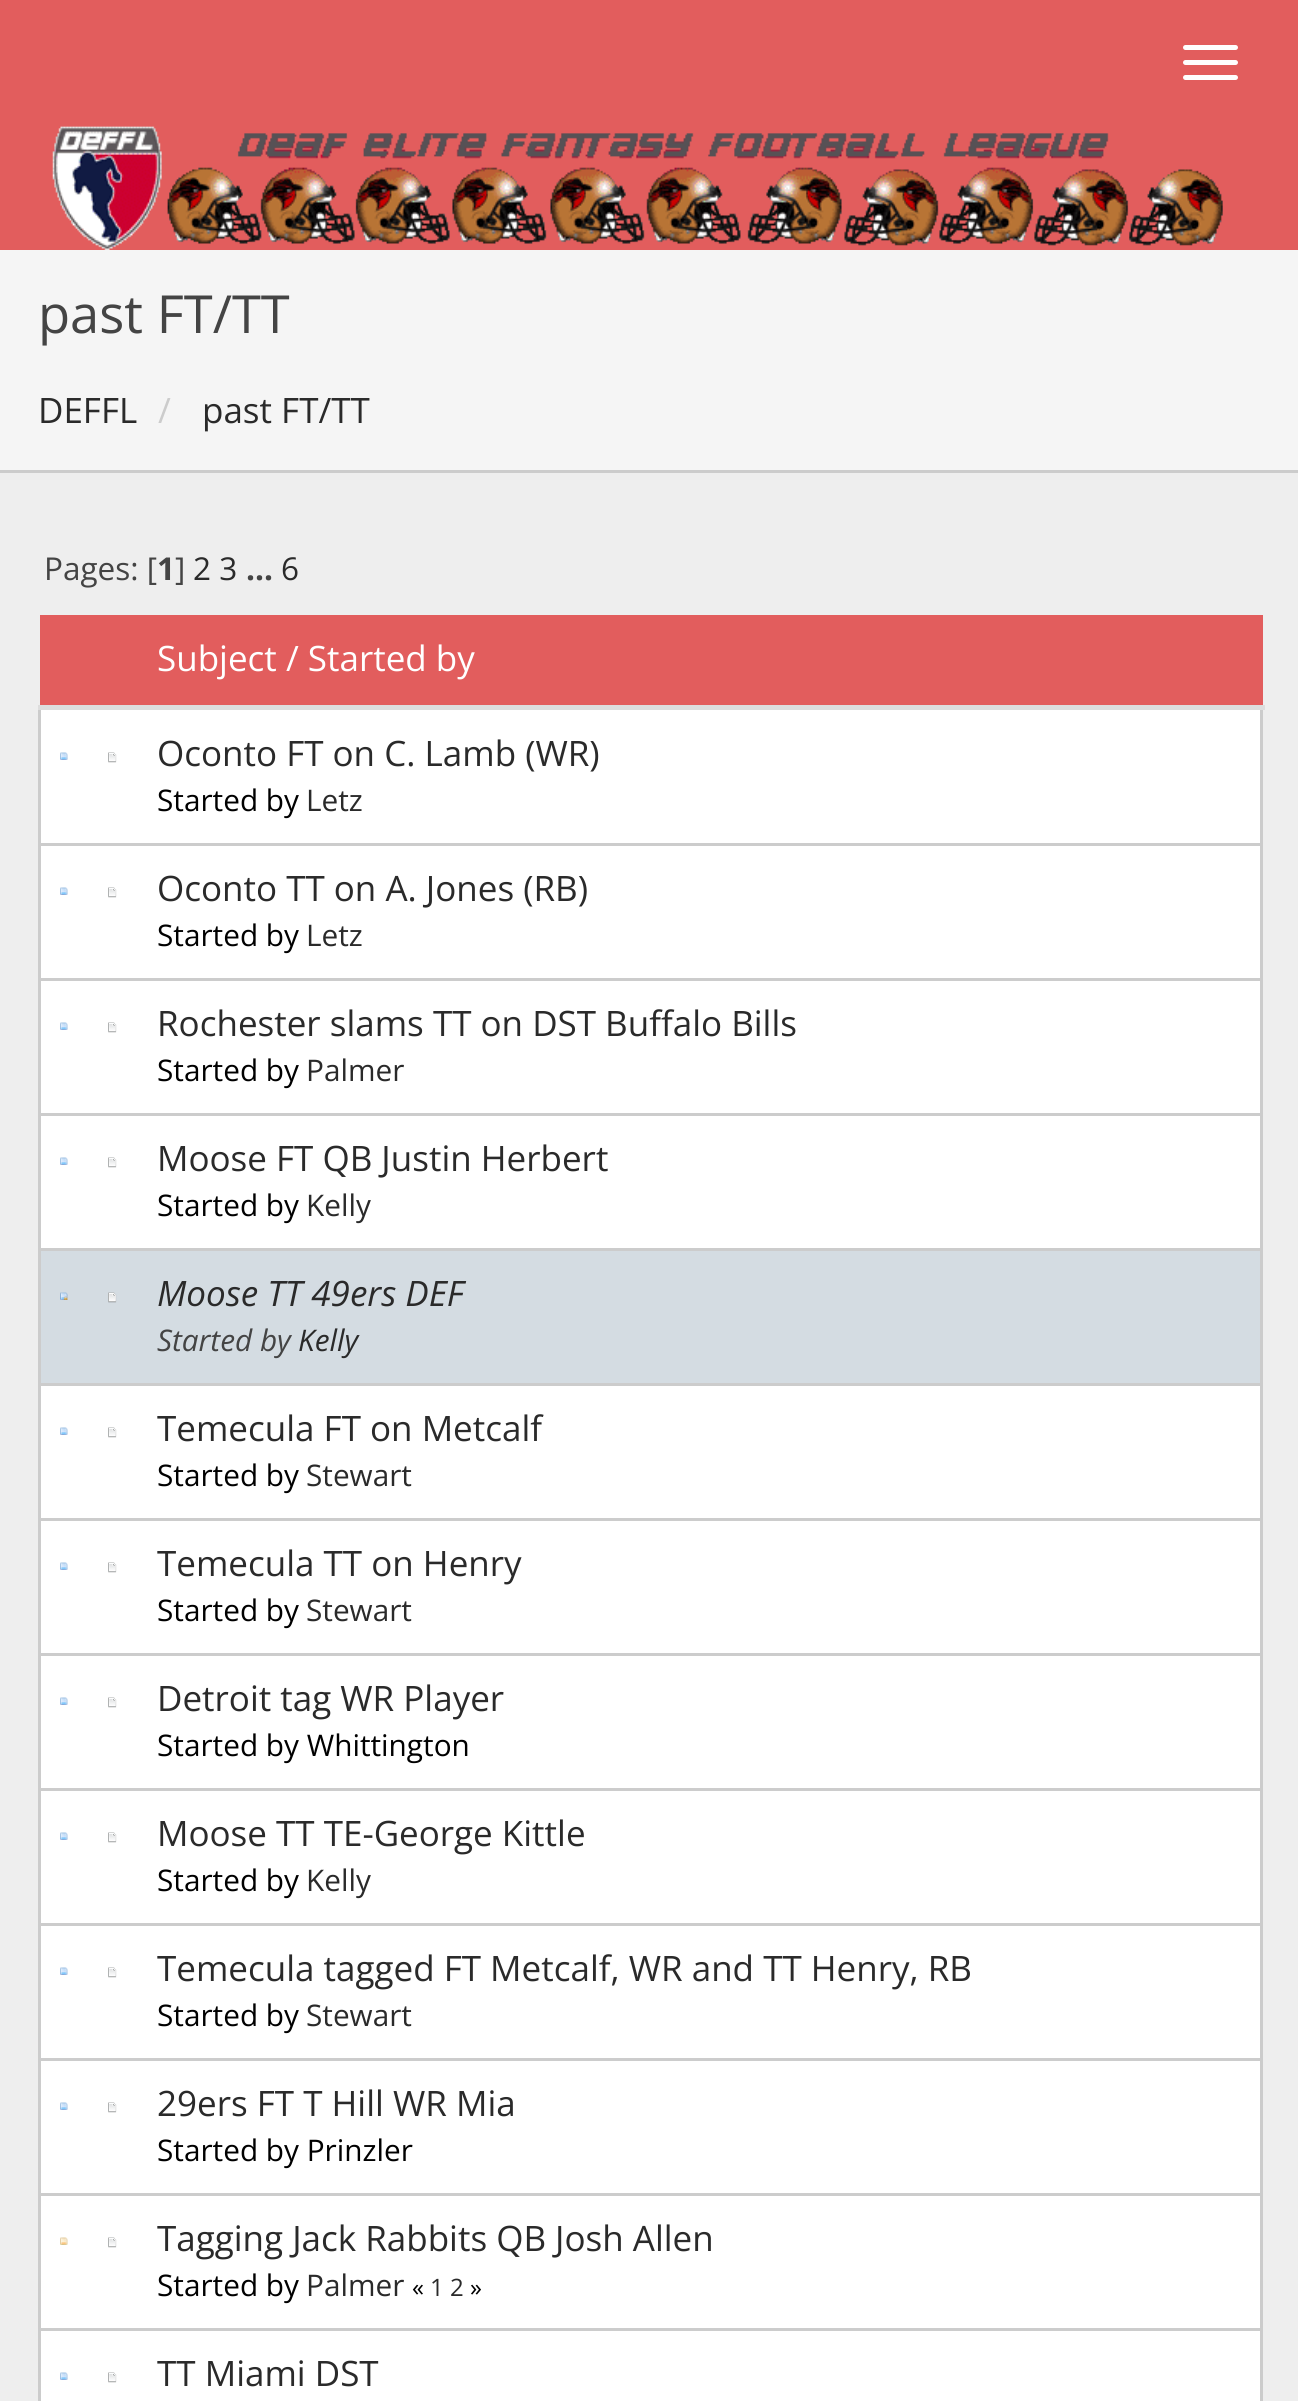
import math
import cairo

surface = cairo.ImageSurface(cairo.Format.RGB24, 1298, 2401)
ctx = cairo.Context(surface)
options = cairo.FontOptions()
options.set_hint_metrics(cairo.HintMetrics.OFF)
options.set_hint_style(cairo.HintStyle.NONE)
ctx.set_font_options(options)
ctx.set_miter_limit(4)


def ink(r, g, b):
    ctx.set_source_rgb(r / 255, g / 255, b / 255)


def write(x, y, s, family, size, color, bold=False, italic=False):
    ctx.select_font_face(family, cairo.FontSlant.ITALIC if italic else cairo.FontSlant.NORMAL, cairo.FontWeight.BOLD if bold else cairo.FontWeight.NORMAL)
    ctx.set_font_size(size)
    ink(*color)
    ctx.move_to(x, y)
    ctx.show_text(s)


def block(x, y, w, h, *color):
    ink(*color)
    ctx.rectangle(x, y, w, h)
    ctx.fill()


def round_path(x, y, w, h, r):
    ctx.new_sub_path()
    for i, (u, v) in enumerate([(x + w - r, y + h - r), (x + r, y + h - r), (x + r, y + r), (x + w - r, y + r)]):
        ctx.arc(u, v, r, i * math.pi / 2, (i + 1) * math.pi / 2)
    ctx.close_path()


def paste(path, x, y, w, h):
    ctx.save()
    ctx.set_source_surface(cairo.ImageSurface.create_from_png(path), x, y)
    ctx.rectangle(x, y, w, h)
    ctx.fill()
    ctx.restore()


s1 = dict(family="Open Sans", size=52.5, color=(68, 68, 68))
s2 = dict(family="Open Sans", size=35, color=(42, 42, 42))
s3 = dict(family="Open Sans", size=35, color=(204, 204, 204))
s4 = dict(family="Open Sans", size=31.5, color=(68, 68, 68))
s5 = dict(family="Open Sans", size=31.5, color=(68, 68, 68), bold=True)
s6 = dict(family="Open Sans", size=31.5, color=(42, 42, 42))
s7 = dict(family="Open Sans", size=35, color=(255, 255, 255))
s8 = dict(family="Open Sans", size=29.75, color=(0, 0, 0))
s9 = dict(family="Open Sans", size=29.75, color=(42, 42, 42))
s10 = dict(family="Open Sans", size=35, color=(42, 42, 42), italic=True)
s11 = dict(family="Open Sans", size=29.75, color=(68, 68, 68), italic=True)
s12 = dict(family="Open Sans", size=29.75, color=(42, 42, 42), italic=True)
s13 = dict(family="Open Sans", size=24, color=(0, 0, 0))
s14 = dict(family="Open Sans", size=24, color=(42, 42, 42))

ink(238, 238, 238)
ctx.paint()
block(0, 0, 1298, 250, 226, 93, 93)
ink(255, 255, 255)
round_path(1183, 45, 55, 5, 2.5)
ctx.fill()
round_path(1183, 60, 55, 5, 2.5)
ctx.fill()
round_path(1183, 75, 55, 5, 2.5)
ctx.fill()
paste("pic1.png", 52, 126, 1171, 124)
block(0, 250, 1298, 220, 245, 245, 245)
block(0, 470, 1298, 3, 204, 204, 204)
write(38, 333, "past FT/TT", **s1)
write(38, 423, "DEFFL", **s2)
write(158, 423, "/", **s3)
write(202, 423, "past FT/TT", **s2)
write(44, 580, "Pages: [", **s4)
write(157, 580, "1", **s5)
write(175, 580, "]", **s4)
write(193, 580, "2 3", **s6)
write(246, 580, "...", **s5)
write(281, 580, "6", **s6)
block(40, 615, 1223, 90, 226, 93, 93)
block(38, 2328, 3, 73, 204, 204, 204)
block(1260, 705, 3, 1696, 204, 204, 204)
block(38, 2328, 1225, 3, 204, 204, 204)
block(38, 2193, 3, 137, 204, 204, 204)
block(38, 2193, 1225, 3, 204, 204, 204)
block(38, 2058, 3, 137, 204, 204, 204)
block(38, 2058, 1225, 3, 204, 204, 204)
block(38, 1923, 3, 137, 204, 204, 204)
block(38, 1923, 1225, 3, 204, 204, 204)
block(38, 1788, 3, 137, 204, 204, 204)
block(38, 1788, 1225, 3, 204, 204, 204)
block(38, 1653, 3, 137, 204, 204, 204)
block(38, 1653, 1225, 3, 204, 204, 204)
block(38, 1518, 3, 137, 204, 204, 204)
block(38, 1518, 1225, 3, 204, 204, 204)
block(38, 1383, 3, 137, 204, 204, 204)
block(38, 1383, 1225, 3, 204, 204, 204)
block(38, 1248, 3, 137, 204, 204, 204)
block(38, 1248, 1225, 3, 204, 204, 204)
block(38, 1113, 3, 137, 204, 204, 204)
block(38, 1113, 1225, 3, 204, 204, 204)
block(38, 978, 3, 137, 204, 204, 204)
block(38, 978, 1225, 3, 204, 204, 204)
block(38, 843, 3, 137, 204, 204, 204)
block(38, 843, 1225, 3, 204, 204, 204)
block(38, 705, 3, 140, 204, 204, 204)
block(38, 705, 1227, 5, 221, 221, 221)
write(157, 671, "Subject / Started by", **s7)
block(41, 710, 1219, 133, 255, 255, 255)
paste("pic2.png", 60, 752, 8, 8)
paste("pic3.png", 108, 752, 9, 11)
write(157, 766, "Oconto FT on C. Lamb (WR)", **s2)
write(157, 811, "Started by", **s8)
write(306, 811, "Letz", **s9)
block(41, 846, 1219, 132, 255, 255, 255)
paste("pic2.png", 60, 887, 8, 8)
paste("pic3.png", 108, 887, 9, 11)
write(157, 901, "Oconto TT on A. Jones (RB)", **s2)
write(157, 946, "Started by", **s8)
write(306, 946, "Letz", **s9)
block(41, 981, 1219, 132, 255, 255, 255)
paste("pic2.png", 60, 1022, 8, 8)
paste("pic4.png", 108, 1022, 9, 11)
write(157, 1036, "Rochester slams TT on DST Buffalo Bills", **s2)
write(157, 1081, "Started by", **s8)
write(306, 1081, "Palmer", **s9)
block(41, 1116, 1219, 132, 255, 255, 255)
paste("pic2.png", 60, 1157, 8, 8)
paste("pic3.png", 108, 1157, 9, 11)
write(157, 1171, "Moose FT QB Justin Herbert", **s2)
write(157, 1216, "Started by", **s8)
write(306, 1216, "Kelly", **s9)
block(41, 1251, 1219, 132, 212, 220, 226)
paste("pic5.png", 60, 1292, 8, 8)
paste("pic6.png", 108, 1292, 9, 11)
write(157, 1306, "Moose TT 49ers DEF", **s10)
write(157, 1351, "Started by", **s11)
write(298, 1351, "Kelly", **s12)
block(41, 1386, 1219, 132, 255, 255, 255)
paste("pic2.png", 60, 1427, 8, 8)
paste("pic3.png", 108, 1427, 9, 11)
write(157, 1441, "Temecula FT on Metcalf", **s2)
write(157, 1486, "Started by", **s8)
write(306, 1486, "Stewart", **s9)
block(41, 1521, 1219, 132, 255, 255, 255)
paste("pic2.png", 60, 1562, 8, 8)
paste("pic4.png", 108, 1562, 9, 11)
write(157, 1576, "Temecula TT on Henry", **s2)
write(157, 1621, "Started by", **s8)
write(306, 1621, "Stewart", **s9)
block(41, 1656, 1219, 132, 255, 255, 255)
paste("pic2.png", 60, 1697, 8, 8)
paste("pic3.png", 108, 1697, 9, 11)
write(157, 1711, "Detroit tag WR Player", **s2)
write(157, 1756, "Started by Whittington", **s8)
block(41, 1791, 1219, 132, 255, 255, 255)
paste("pic2.png", 60, 1832, 8, 8)
paste("pic3.png", 108, 1832, 9, 11)
write(157, 1846, "Moose TT TE-George Kittle", **s2)
write(157, 1891, "Started by", **s8)
write(306, 1891, "Kelly", **s9)
block(41, 1926, 1219, 132, 255, 255, 255)
paste("pic2.png", 60, 1967, 8, 8)
paste("pic3.png", 108, 1967, 9, 11)
write(157, 1981, "Temecula tagged FT Metcalf, WR and TT Henry, RB", **s2)
write(157, 2026, "Started by", **s8)
write(306, 2026, "Stewart", **s9)
block(41, 2061, 1219, 132, 255, 255, 255)
paste("pic2.png", 60, 2102, 8, 8)
paste("pic3.png", 108, 2102, 9, 11)
write(157, 2116, "29ers FT T Hill WR Mia", **s2)
write(157, 2161, "Started by Prinzler", **s8)
block(41, 2196, 1219, 132, 255, 255, 255)
paste("pic7.png", 60, 2237, 8, 8)
paste("pic3.png", 108, 2237, 9, 11)
write(157, 2251, "Tagging Jack Rabbits QB Josh Allen", **s2)
write(157, 2296, "Started by", **s8)
write(306, 2296, "Palmer", **s9)
write(412, 2296, "«", **s13)
write(430, 2296, "1 2", **s14)
write(470, 2296, "»", **s13)
block(41, 2331, 1219, 70, 255, 255, 255)
paste("pic2.png", 60, 2372, 8, 8)
paste("pic3.png", 108, 2372, 9, 11)
write(157, 2386, "TT Miami DST", **s2)
surface.write_to_png("screenshot.png")
